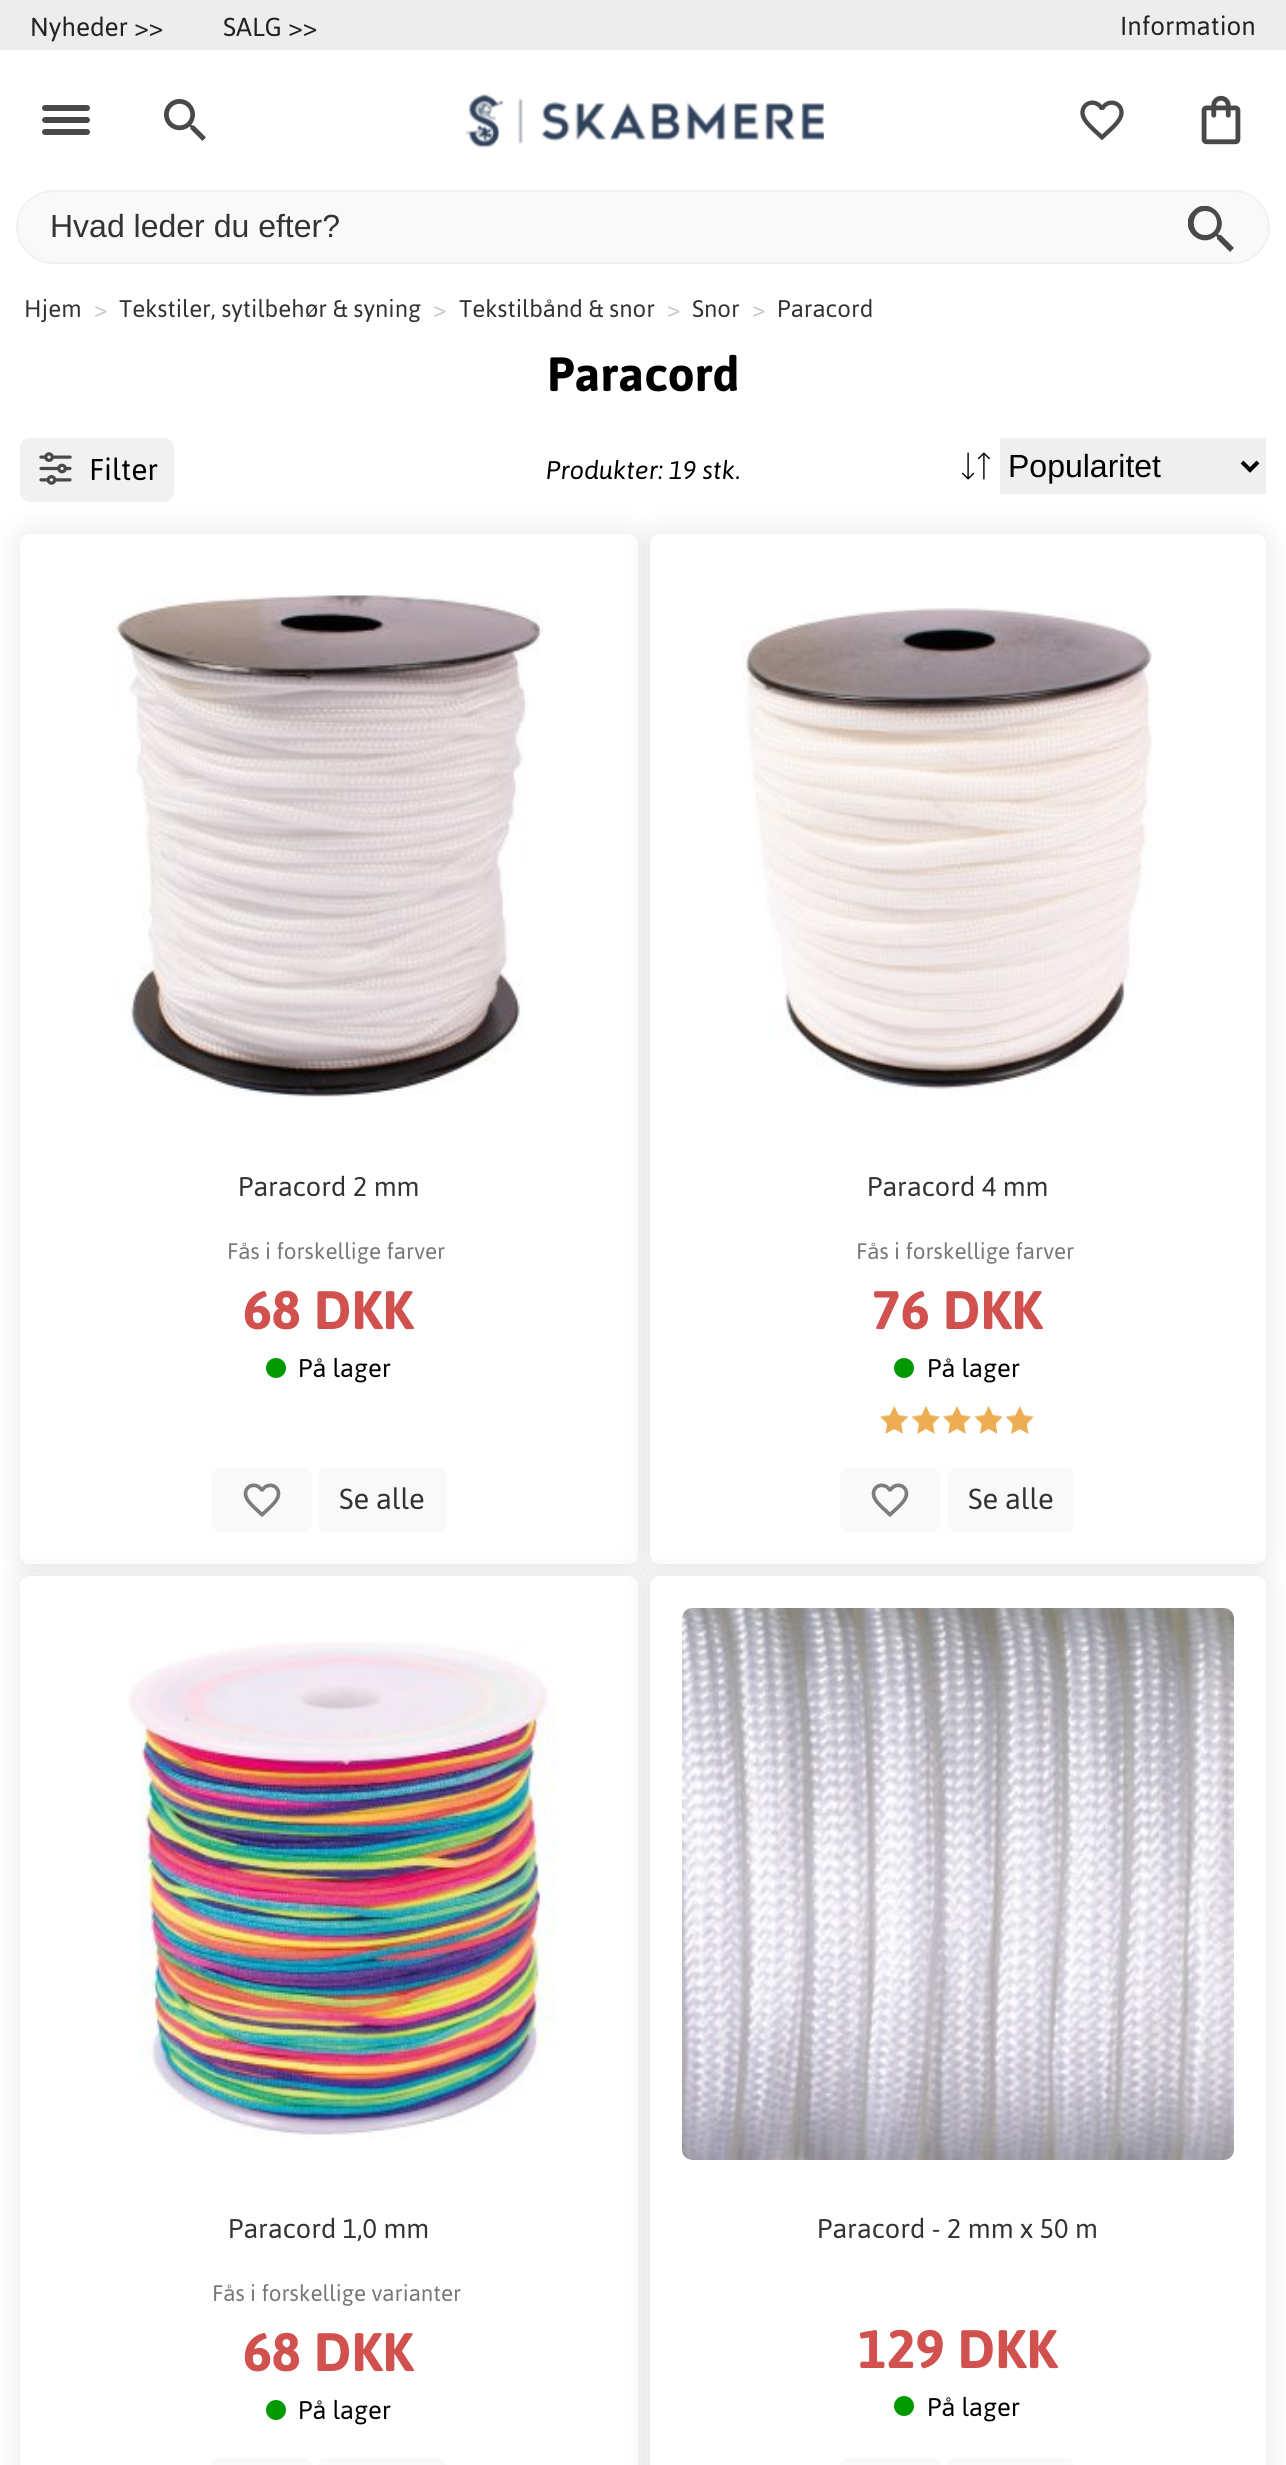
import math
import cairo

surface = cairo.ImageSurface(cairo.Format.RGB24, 1286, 2465)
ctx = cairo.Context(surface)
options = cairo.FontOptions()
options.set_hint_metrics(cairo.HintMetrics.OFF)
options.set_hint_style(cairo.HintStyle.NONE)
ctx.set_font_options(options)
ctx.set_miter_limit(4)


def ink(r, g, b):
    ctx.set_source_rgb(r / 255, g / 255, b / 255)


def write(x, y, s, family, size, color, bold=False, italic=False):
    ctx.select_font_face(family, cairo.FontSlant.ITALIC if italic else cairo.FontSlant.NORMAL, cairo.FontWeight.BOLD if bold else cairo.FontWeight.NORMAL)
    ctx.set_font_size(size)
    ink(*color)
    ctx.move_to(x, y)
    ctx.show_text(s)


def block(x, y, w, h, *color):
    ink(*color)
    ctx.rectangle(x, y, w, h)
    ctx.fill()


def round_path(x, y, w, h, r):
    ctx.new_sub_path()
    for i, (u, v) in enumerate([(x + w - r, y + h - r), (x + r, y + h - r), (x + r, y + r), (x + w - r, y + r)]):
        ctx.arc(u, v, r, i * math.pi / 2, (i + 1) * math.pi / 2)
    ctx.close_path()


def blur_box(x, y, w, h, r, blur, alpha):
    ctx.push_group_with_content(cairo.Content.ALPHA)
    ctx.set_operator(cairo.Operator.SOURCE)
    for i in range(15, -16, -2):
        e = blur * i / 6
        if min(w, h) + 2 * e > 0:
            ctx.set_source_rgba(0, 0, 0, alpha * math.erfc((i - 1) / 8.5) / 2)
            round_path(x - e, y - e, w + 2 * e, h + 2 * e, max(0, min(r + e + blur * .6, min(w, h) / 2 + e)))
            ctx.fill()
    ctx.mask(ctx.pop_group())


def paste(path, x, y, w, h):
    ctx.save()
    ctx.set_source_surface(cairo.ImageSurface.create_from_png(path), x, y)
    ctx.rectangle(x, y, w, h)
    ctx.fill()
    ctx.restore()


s1 = dict(family="Asap", size=26, color=(34, 34, 34))
s2 = dict(family="Liberation Sans", size=32, color=(51, 51, 51))
s3 = dict(family="Asap", size=24, color=(51, 51, 51))
s4 = dict(family="Asap", size=24, color=(201, 201, 201))
s5 = dict(family="Asap", size=48, color=(0, 0, 0), bold=True)
s6 = dict(family="Asap", size=30, color=(0, 0, 0))
s7 = dict(family="Asap", size=25.5, color=(0, 0, 0), italic=True)
s8 = dict(family="Liberation Sans", size=32, color=(0, 0, 0))
s9 = dict(family="Asap", size=27, color=(51, 51, 51))
s10 = dict(family="Asap", size=22.4, color=(119, 119, 119))
s11 = dict(family="Asap", size=54, color=(209, 81, 78), bold=True)
s12 = dict(family="Asap", size=25.5, color=(0, 0, 0))
s13 = dict(family="Asap", size=29, color=(51, 51, 51))

ink(255, 255, 255)
ctx.paint()
block(0, 0, 1286, 50, 237, 237, 237)
write(30, 36, "Nyheder >>", **s1)
write(223, 36, "SALG >>", **s1)
write(1120, 35, "Information", **s1)
paste("pic1.png", 42, 105, 48, 30)
paste("pic2.png", 164, 99, 42, 42)
paste("pic3.png", 465, 94, 359, 54)
paste("pic4.png", 1080, 100, 44, 41)
paste("pic5.png", 1201, 95, 40, 50)
ink(249, 249, 249)
round_path(17, 191, 1252, 72, 36)
ctx.fill_preserve()
ink(241, 241, 241)
ctx.stroke()
write(50, 237, "Hvad leder du efter?", **s2)
ctx.save()
ctx.rectangle(1188, 206, 46, 46)
ctx.clip()
ink(73, 73, 73)
ctx.new_path()
ctx.move_to(1221, 235)
ctx.line_to(1219, 235)
ctx.line_to(1218, 234)
ctx.curve_to(1231, 218, 1208, 195, 1193, 211)
ctx.curve_to(1177, 227, 1200, 250, 1216, 236)
ctx.line_to(1217, 237)
ctx.line_to(1217, 239)
ctx.line_to(1230, 252)
ctx.line_to(1234, 248)
ctx.close_path()
ctx.move_to(1205, 235)
ctx.curve_to(1190, 235, 1190, 211, 1205, 211)
ctx.curve_to(1221, 211, 1221, 235, 1205, 235)
ctx.close_path()
ctx.fill()
ctx.restore()
write(24, 317, "Hjem", **s3)
write(94, 317, ">", **s4)
write(119, 317, "Tekstiler, sytilbehør & syning", **s3)
write(433, 317, ">", **s4)
write(459, 317, "Tekstilbånd & snor", **s3)
write(667, 317, ">", **s4)
write(692, 317, "Snor", **s3)
write(752, 317, ">", **s4)
write(777, 317, "Paracord", **s3)
write(547, 391, "Paracord", **s5)
ink(241, 241, 241)
round_path(20, 438, 154, 64, 10)
ctx.fill()
paste("pic6.png", 39, 452, 33, 33)
write(89, 480, "Filter", **s6)
write(546, 479, "Produkter: 19 stk.", **s7)
paste("pic7.png", 962, 452, 28, 28)
block(1000, 438, 266, 56, 239, 239, 239)
ctx.new_path()
ctx.move_to(1242, 462)
ctx.line_to(1250, 470)
ctx.line_to(1258, 462)
ink(0, 0, 0)
ctx.set_line_width(4)
ctx.stroke()
write(1008, 477, "Popularitet", **s8)
ink(0, 0, 0)
blur_box(20, 534, 618, 1030, 10, 15, 0.1)
ink(255, 255, 255)
round_path(20, 534, 618, 1030, 10)
ctx.fill()
paste("pic8.png", 112, 595, 431, 502)
write(238, 1196, "Paracord 2 mm", **s9)
write(227, 1259, "Fås i forskellige farver", **s10)
write(243, 1329, "68 DKK", **s11)
ink(0, 153, 0)
ctx.new_path()
ctx.arc(276, 1368, 10, 0, 2 * math.pi)
ctx.fill()
write(298, 1377, "På lager", **s12)
ink(249, 249, 249)
round_path(212, 1468, 100, 64, 8)
ctx.fill()
paste("pic9.png", 243, 1483, 38, 34)
round_path(318, 1468, 128, 64, 8)
ctx.fill()
write(339, 1509, "Se alle", **s13)
ink(0, 0, 0)
blur_box(650, 534, 616, 1030, 10, 15, 0.1)
ink(255, 255, 255)
round_path(651, 535, 614, 1028, 9)
ctx.fill_preserve()
ctx.set_line_width(2)
ctx.stroke()
paste("pic10.png", 741, 607, 412, 488)
write(867, 1196, "Paracord 4 mm", **s9)
write(856, 1259, "Fås i forskellige farver", **s10)
write(872, 1329, "76 DKK", **s11)
ink(0, 153, 0)
ctx.new_path()
ctx.arc(904, 1368, 10, 0, 2 * math.pi)
ctx.fill()
write(927, 1377, "På lager", **s12)
paste("pic11.png", 880, 1406, 154, 28)
ink(249, 249, 249)
round_path(840, 1468, 100, 64, 8)
ctx.fill()
paste("pic9.png", 871, 1483, 38, 34)
round_path(948, 1468, 126, 64, 8)
ctx.fill()
write(968, 1509, "Se alle", **s13)
ink(0, 0, 0)
blur_box(20, 1576, 618, 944, 10, 15, 0.1)
ink(255, 255, 255)
round_path(21, 1577, 616, 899, 9)
ctx.fill_preserve()
ctx.stroke()
paste("pic12.png", 128, 1641, 428, 497)
write(228, 2238, "Paracord 1,0 mm", **s9)
write(212, 2301, "Fås i forskellige varianter", **s10)
write(243, 2371, "68 DKK", **s11)
ink(0, 153, 0)
ctx.new_path()
ctx.arc(276, 2410, 10, 0, 2 * math.pi)
ctx.fill()
write(298, 2419, "På lager", **s12)
ink(249, 249, 249)
round_path(212, 2458, 100, 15, 8)
ctx.fill()
round_path(318, 2458, 128, 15, 8)
ctx.fill()
ink(0, 0, 0)
blur_box(650, 1576, 616, 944, 10, 15, 0.1)
ink(255, 255, 255)
round_path(651, 1577, 614, 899, 9)
ctx.fill_preserve()
ctx.stroke()
paste("pic13.png", 682, 1608, 552, 552)
write(817, 2238, "Paracord - 2 mm x 50 m", **s9)
write(858, 2368, "129 DKK", **s11)
ink(0, 153, 0)
ctx.new_path()
ctx.arc(904, 2406, 10, 0, 2 * math.pi)
ctx.fill()
write(927, 2416, "På lager", **s12)
ink(249, 249, 249)
round_path(840, 2458, 100, 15, 8)
ctx.fill()
round_path(948, 2458, 126, 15, 8)
ctx.fill()
surface.write_to_png("screenshot.png")
